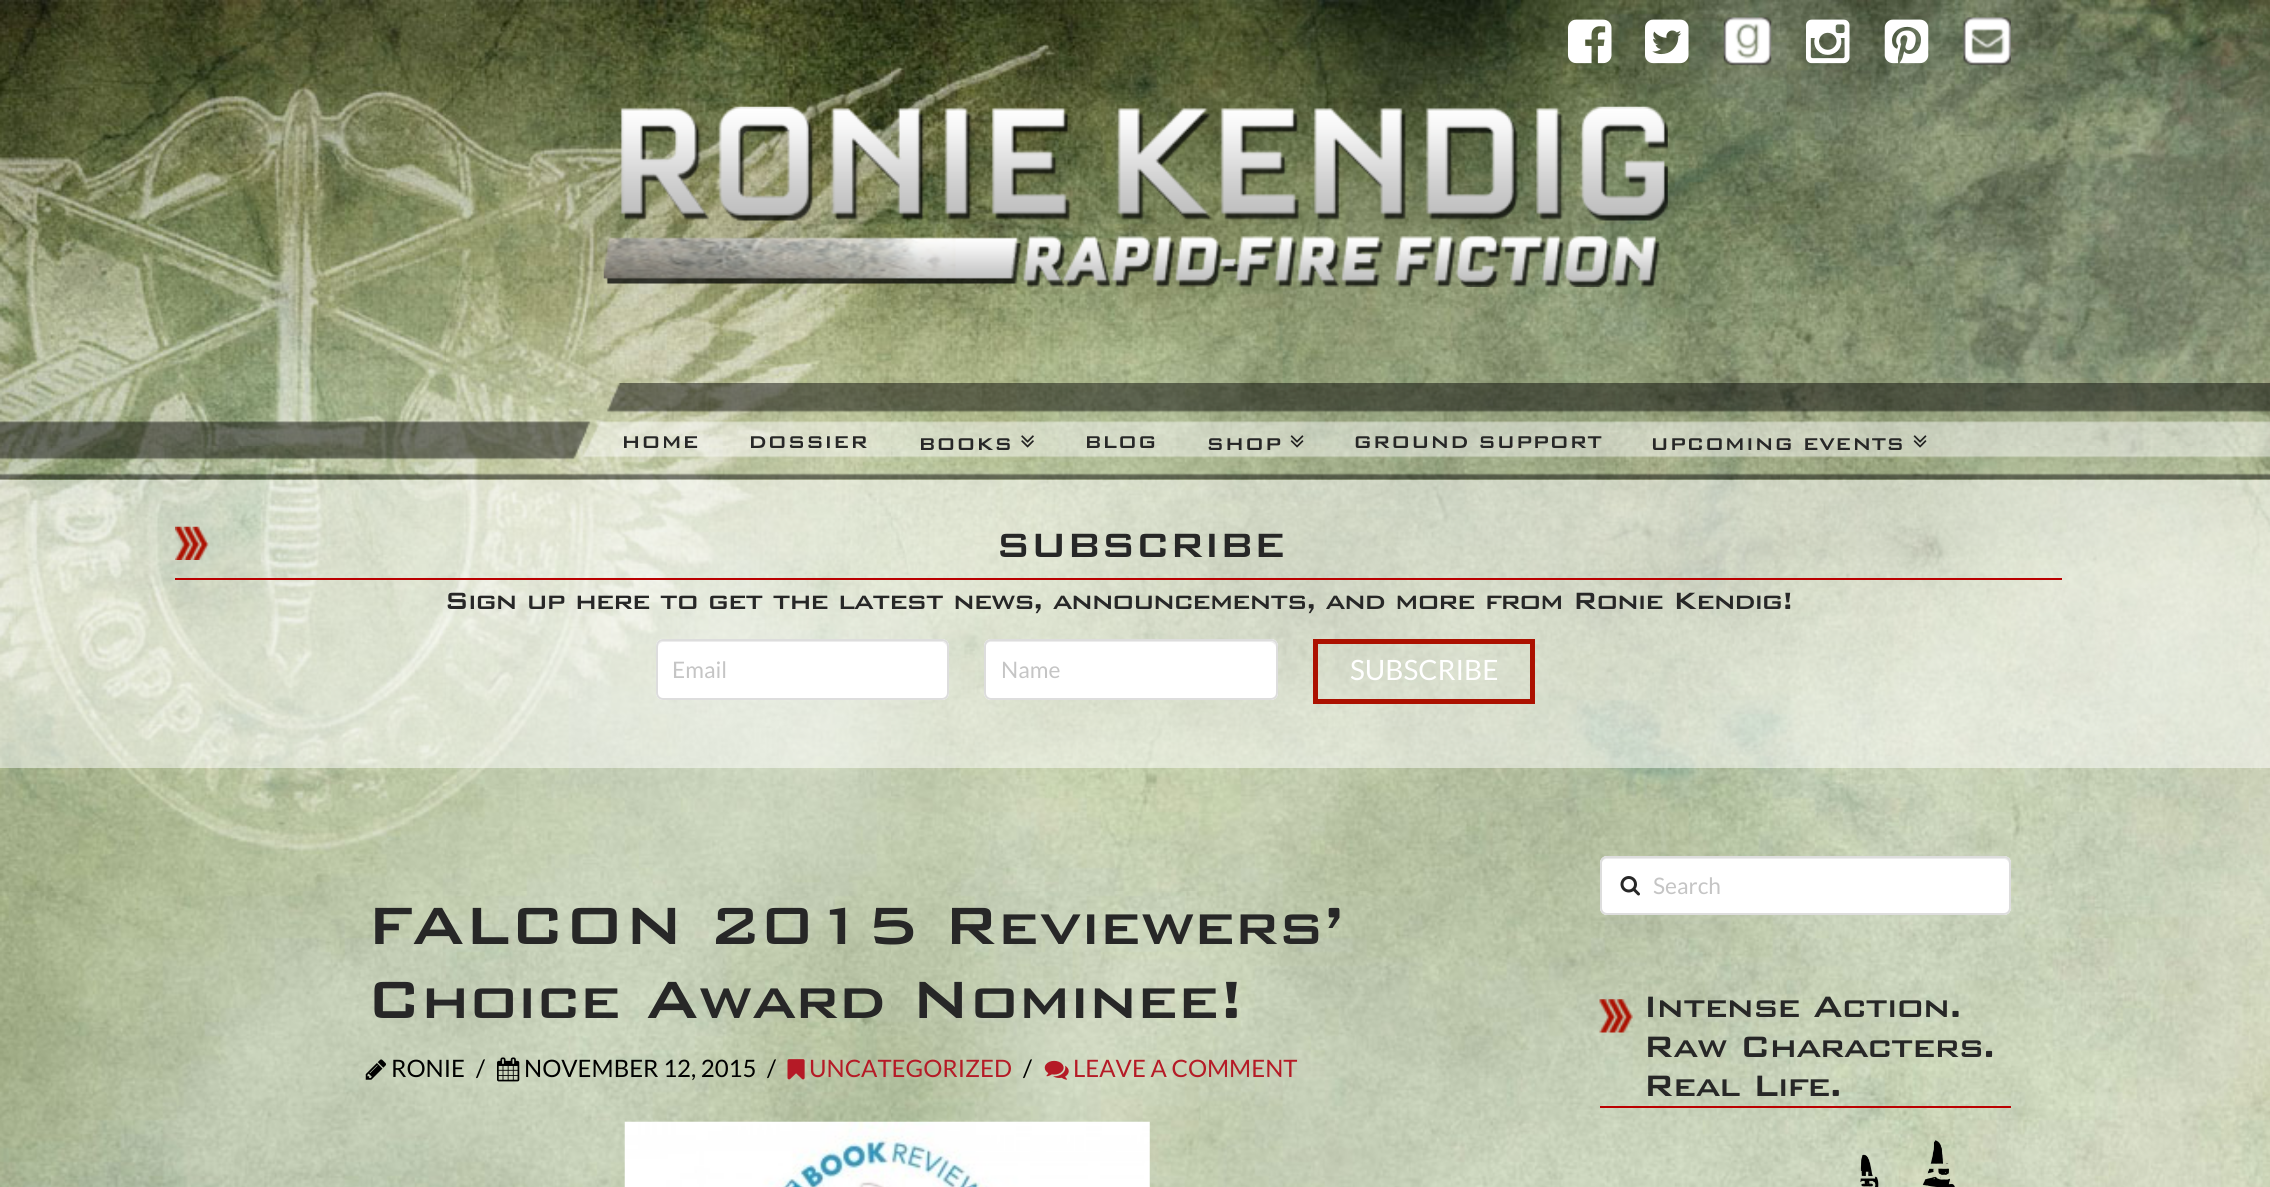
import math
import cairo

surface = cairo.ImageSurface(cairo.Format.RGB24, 2270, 1187)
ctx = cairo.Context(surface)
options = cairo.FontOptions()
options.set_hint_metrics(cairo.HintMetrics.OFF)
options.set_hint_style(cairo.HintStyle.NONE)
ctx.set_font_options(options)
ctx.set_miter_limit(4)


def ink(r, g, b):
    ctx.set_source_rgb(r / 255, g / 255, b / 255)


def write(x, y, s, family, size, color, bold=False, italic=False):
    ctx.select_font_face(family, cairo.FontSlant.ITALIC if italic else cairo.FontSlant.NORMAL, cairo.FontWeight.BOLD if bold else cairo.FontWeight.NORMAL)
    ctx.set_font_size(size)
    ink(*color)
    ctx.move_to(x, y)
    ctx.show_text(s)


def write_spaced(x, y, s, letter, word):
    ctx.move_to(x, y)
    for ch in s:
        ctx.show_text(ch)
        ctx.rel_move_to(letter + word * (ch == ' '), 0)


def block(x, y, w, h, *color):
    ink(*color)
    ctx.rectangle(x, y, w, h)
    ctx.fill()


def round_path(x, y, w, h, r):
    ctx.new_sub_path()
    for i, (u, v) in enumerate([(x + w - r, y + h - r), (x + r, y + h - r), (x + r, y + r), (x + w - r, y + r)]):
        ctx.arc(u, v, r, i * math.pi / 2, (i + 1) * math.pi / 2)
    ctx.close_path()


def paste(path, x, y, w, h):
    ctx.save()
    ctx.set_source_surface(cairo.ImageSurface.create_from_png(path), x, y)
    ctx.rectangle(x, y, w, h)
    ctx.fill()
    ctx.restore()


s1 = dict(family="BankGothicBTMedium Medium", size=22.75, color=(39, 39, 39))
s2 = dict(family="Lato", size=22.75, color=(197, 197, 197))
s3 = dict(family="Lato", size=28, color=(255, 255, 255))
s4 = dict(family="Lato", size=24, color=(0, 0, 0))
s5 = dict(family="Lato", size=24, color=(181, 26, 38))

ink(255, 255, 255)
ctx.paint()
paste("pic1.png", 0, 0, 2270, 1187)
paste("pic2.png", 1568, 19, 44, 45)
paste("pic3.png", 1645, 19, 44, 45)
paste("pic4.png", 1723, 17, 49, 49)
paste("pic5.png", 1806, 19, 44, 45)
paste("pic6.png", 1884, 19, 45, 45)
paste("pic7.png", 1962, 17, 49, 49)
paste("pic8.png", 603, 106, 1065, 181)
paste("pic9.png", 0, 383, 2270, 97)
write(621, 448, "HOME", **s1)
write(748, 448, "DOSSIER", **s1)
write(918, 450, "BOOKS", **s1)
paste("pic10.png", 1021, 435, 13, 13)
write(1084, 448, "BLOG", **s1)
write(1206, 450, "SHOP", **s1)
paste("pic11.png", 1290, 435, 14, 13)
write(1353, 448, "GROUND SUPPORT", **s1)
write(1650, 450, "UPCOMING EVENTS", **s1)
paste("pic12.png", 1913, 435, 14, 13)
ctx.set_source_rgba(1, 1, 1, 0.5)
ctx.rectangle(0, 480, 2270, 288)
ctx.fill()
paste("pic13.png", 175, 526, 34, 34)
block(175, 578, 1887, 2, 187, 0, 0)
ctx.set_font_size(45)
ink(39, 39, 39)
write_spaced(995, 557, "SUBSCRIBE", -1.75, 0)
ctx.set_font_size(31.5)
write_spaced(444, 609, "Sign up here to get the latest news, announcements, and more from Ronie Kendig!", -1.75, 0)
ink(255, 255, 255)
round_path(656, 639, 293, 61, 7)
ctx.fill()
ink(236, 236, 236)
ctx.new_path()
ctx.move_to(663, 642)
ctx.line_to(942, 642)
ctx.curve_to(944, 642, 947, 645, 947, 648)
ctx.curve_to(947, 645, 946, 641, 942, 641)
ctx.line_to(662, 641)
ctx.curve_to(658, 642, 658, 645, 658, 648)
ctx.curve_to(658, 645, 660, 642, 663, 642)
ctx.close_path()
ctx.fill()
round_path(657, 640, 291, 59, 6)
ink(221, 221, 221)
ctx.stroke()
write(672, 678, "Email", **s2)
ink(255, 255, 255)
round_path(984, 639, 294, 61, 7)
ctx.fill()
ink(236, 236, 236)
ctx.new_path()
ctx.move_to(990, 642)
ctx.line_to(1270, 642)
ctx.curve_to(1273, 642, 1276, 645, 1276, 648)
ctx.curve_to(1276, 645, 1275, 641, 1271, 641)
ctx.line_to(989, 641)
ctx.curve_to(985, 642, 985, 645, 985, 648)
ctx.curve_to(985, 645, 988, 642, 990, 642)
ctx.close_path()
ctx.fill()
round_path(985, 640, 292, 59, 6)
ink(221, 221, 221)
ctx.stroke()
write(1001, 678, "Name", **s2)
ctx.rectangle(1315.5, 641.5, 217, 60)
ink(172, 17, 0)
ctx.set_line_width(5)
ctx.stroke()
write(1350, 680, "SUBSCRIBE", **s3)
ctx.select_font_face("BankGothicBTMedium Medium")
ctx.set_font_size(70)
ink(39, 39, 39)
write_spaced(366, 944, "FALCON 2015 Reviewers’", -1.75, 0)
write_spaced(366, 1018, "Choice Award Nominee!", -1.75, 0)
paste("pic14.png", 365, 1059, 21, 21)
write(391, 1077, "RONIE", **s4)
write(476, 1077, "/", **s4)
paste("pic15.png", 497, 1057, 23, 25)
write(524, 1077, "NOVEMBER 12, 2015", **s4)
write(767, 1077, "/", **s4)
paste("pic16.png", 787, 1059, 18, 21)
write(809, 1077, "UNCATEGORIZED", **s5)
write(1023, 1077, "/", **s4)
paste("pic17.png", 1044, 1060, 25, 20)
write(1073, 1077, "LEAVE A COMMENT", **s5)
paste("pic18.png", 624, 1121, 526, 66)
ink(255, 255, 255)
round_path(1600, 856, 411, 59, 7)
ctx.fill()
ink(236, 236, 236)
ctx.new_path()
ctx.move_to(1606, 859)
ctx.line_to(2004, 859)
ctx.curve_to(2007, 859, 2009, 862, 2009, 864)
ctx.line_to(2009, 863)
ctx.curve_to(2009, 860, 2007, 858, 2004, 858)
ctx.line_to(1606, 858)
ctx.curve_to(1603, 858, 1601, 860, 1601, 863)
ctx.line_to(1601, 864)
ctx.curve_to(1601, 862, 1604, 859, 1606, 859)
ctx.close_path()
ctx.fill()
round_path(1601, 857, 409, 57, 6)
ink(221, 221, 221)
ctx.set_line_width(2)
ctx.stroke()
paste("pic19.png", 1620, 876, 20, 20)
write(1653, 894, "Search", **s2)
paste("pic20.png", 1599, 999, 34, 34)
block(1600, 1106, 411, 2, 187, 0, 0)
ctx.select_font_face("BankGothicBTMedium Medium")
ctx.set_font_size(39.4)
ink(39, 39, 39)
write_spaced(1643, 1017, "Intense Action.", -1.75, 0)
write_spaced(1643, 1057, "Raw Characters.", -1.75, 0)
write_spaced(1643, 1096, "Real Life.", -1.75, 0)
paste("pic21.png", 1860, 1140, 95, 47)
surface.write_to_png("screenshot.png")
